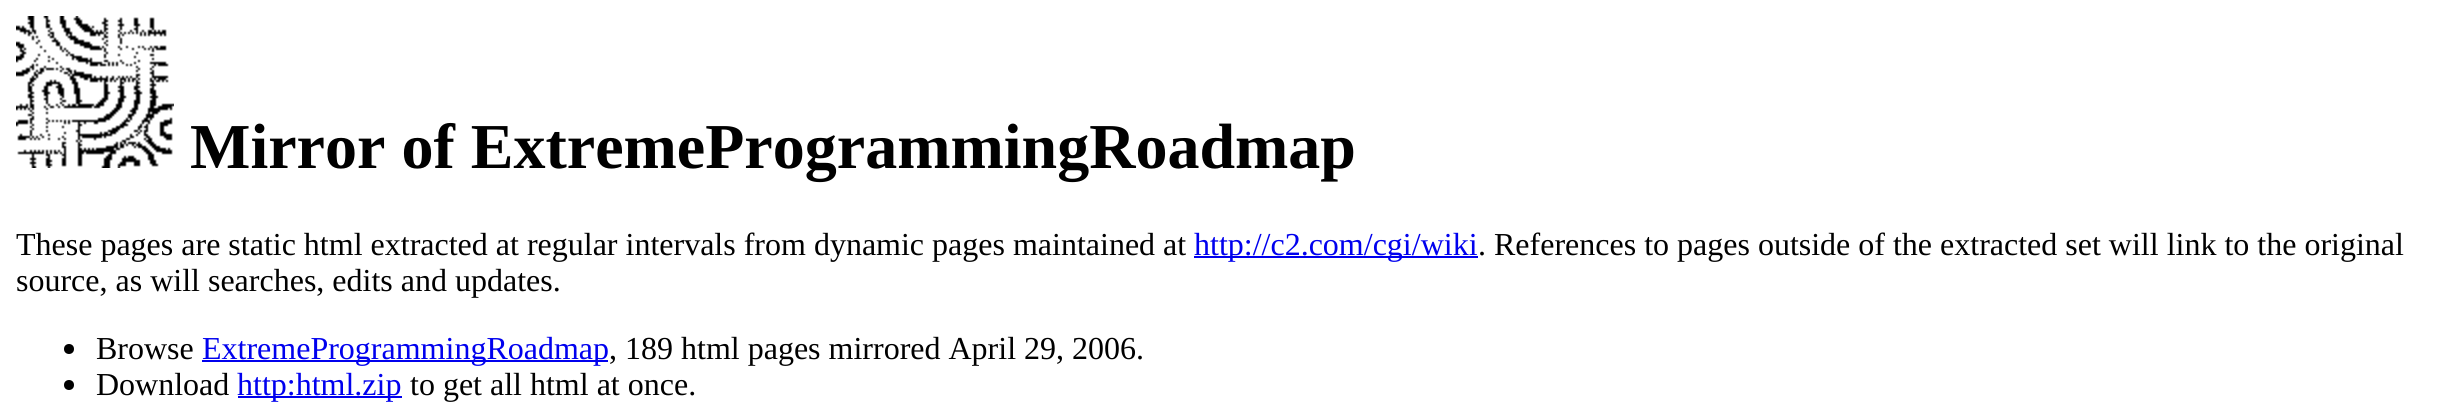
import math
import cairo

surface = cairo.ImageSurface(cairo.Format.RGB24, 2450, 411)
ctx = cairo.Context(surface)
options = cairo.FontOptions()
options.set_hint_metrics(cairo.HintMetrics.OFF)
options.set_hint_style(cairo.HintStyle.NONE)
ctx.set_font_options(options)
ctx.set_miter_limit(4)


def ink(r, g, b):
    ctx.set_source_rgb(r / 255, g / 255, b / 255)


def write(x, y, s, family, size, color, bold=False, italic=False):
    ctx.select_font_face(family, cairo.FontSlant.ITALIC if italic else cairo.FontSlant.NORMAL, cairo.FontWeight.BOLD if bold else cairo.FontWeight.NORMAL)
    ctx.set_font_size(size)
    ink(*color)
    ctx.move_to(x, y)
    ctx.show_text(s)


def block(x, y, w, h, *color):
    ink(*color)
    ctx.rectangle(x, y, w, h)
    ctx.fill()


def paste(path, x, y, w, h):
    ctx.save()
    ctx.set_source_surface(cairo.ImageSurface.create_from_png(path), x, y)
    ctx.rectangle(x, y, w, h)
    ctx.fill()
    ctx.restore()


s1 = dict(family="Liberation Serif", size=64, color=(0, 0, 0), bold=True)
s2 = dict(family="Liberation Serif", size=32, color=(0, 0, 0))
s3 = dict(family="Liberation Serif", size=32, color=(0, 0, 238))

ink(255, 255, 255)
ctx.paint()
paste("pic1.png", 16, 16, 158, 152)
write(190, 168, "Mirror of ExtremeProgrammingRoadmap", **s1)
write(16, 255, "These pages are static html extracted at regular intervals from dynamic pages maintained at", **s2)
block(1194, 256, 284, 2, 0, 0, 238)
write(1194, 255, "http://c2.com/cgi/wiki", **s3)
write(1478, 255, ". References to pages outside of the extracted set will link to the original", **s2)
write(16, 291, "source, as will searches, edits and updates.", **s2)
ctx.new_path()
ctx.arc(69, 349, 5, 0, 2 * math.pi)
ctx.fill()
write(96, 359, "Browse", **s2)
block(202, 360, 406, 2, 0, 0, 238)
write(202, 359, "ExtremeProgrammingRoadmap", **s3)
write(609, 359, ", 189 html pages mirrored April 29, 2006.", **s2)
ctx.new_path()
ctx.arc(69, 385, 5, 0, 2 * math.pi)
ctx.fill()
write(96, 395, "Download", **s2)
block(238, 396, 164, 2, 0, 0, 238)
write(237, 395, "http:html.zip", **s3)
write(410, 395, "to get all html at once.", **s2)
surface.write_to_png("screenshot.png")
